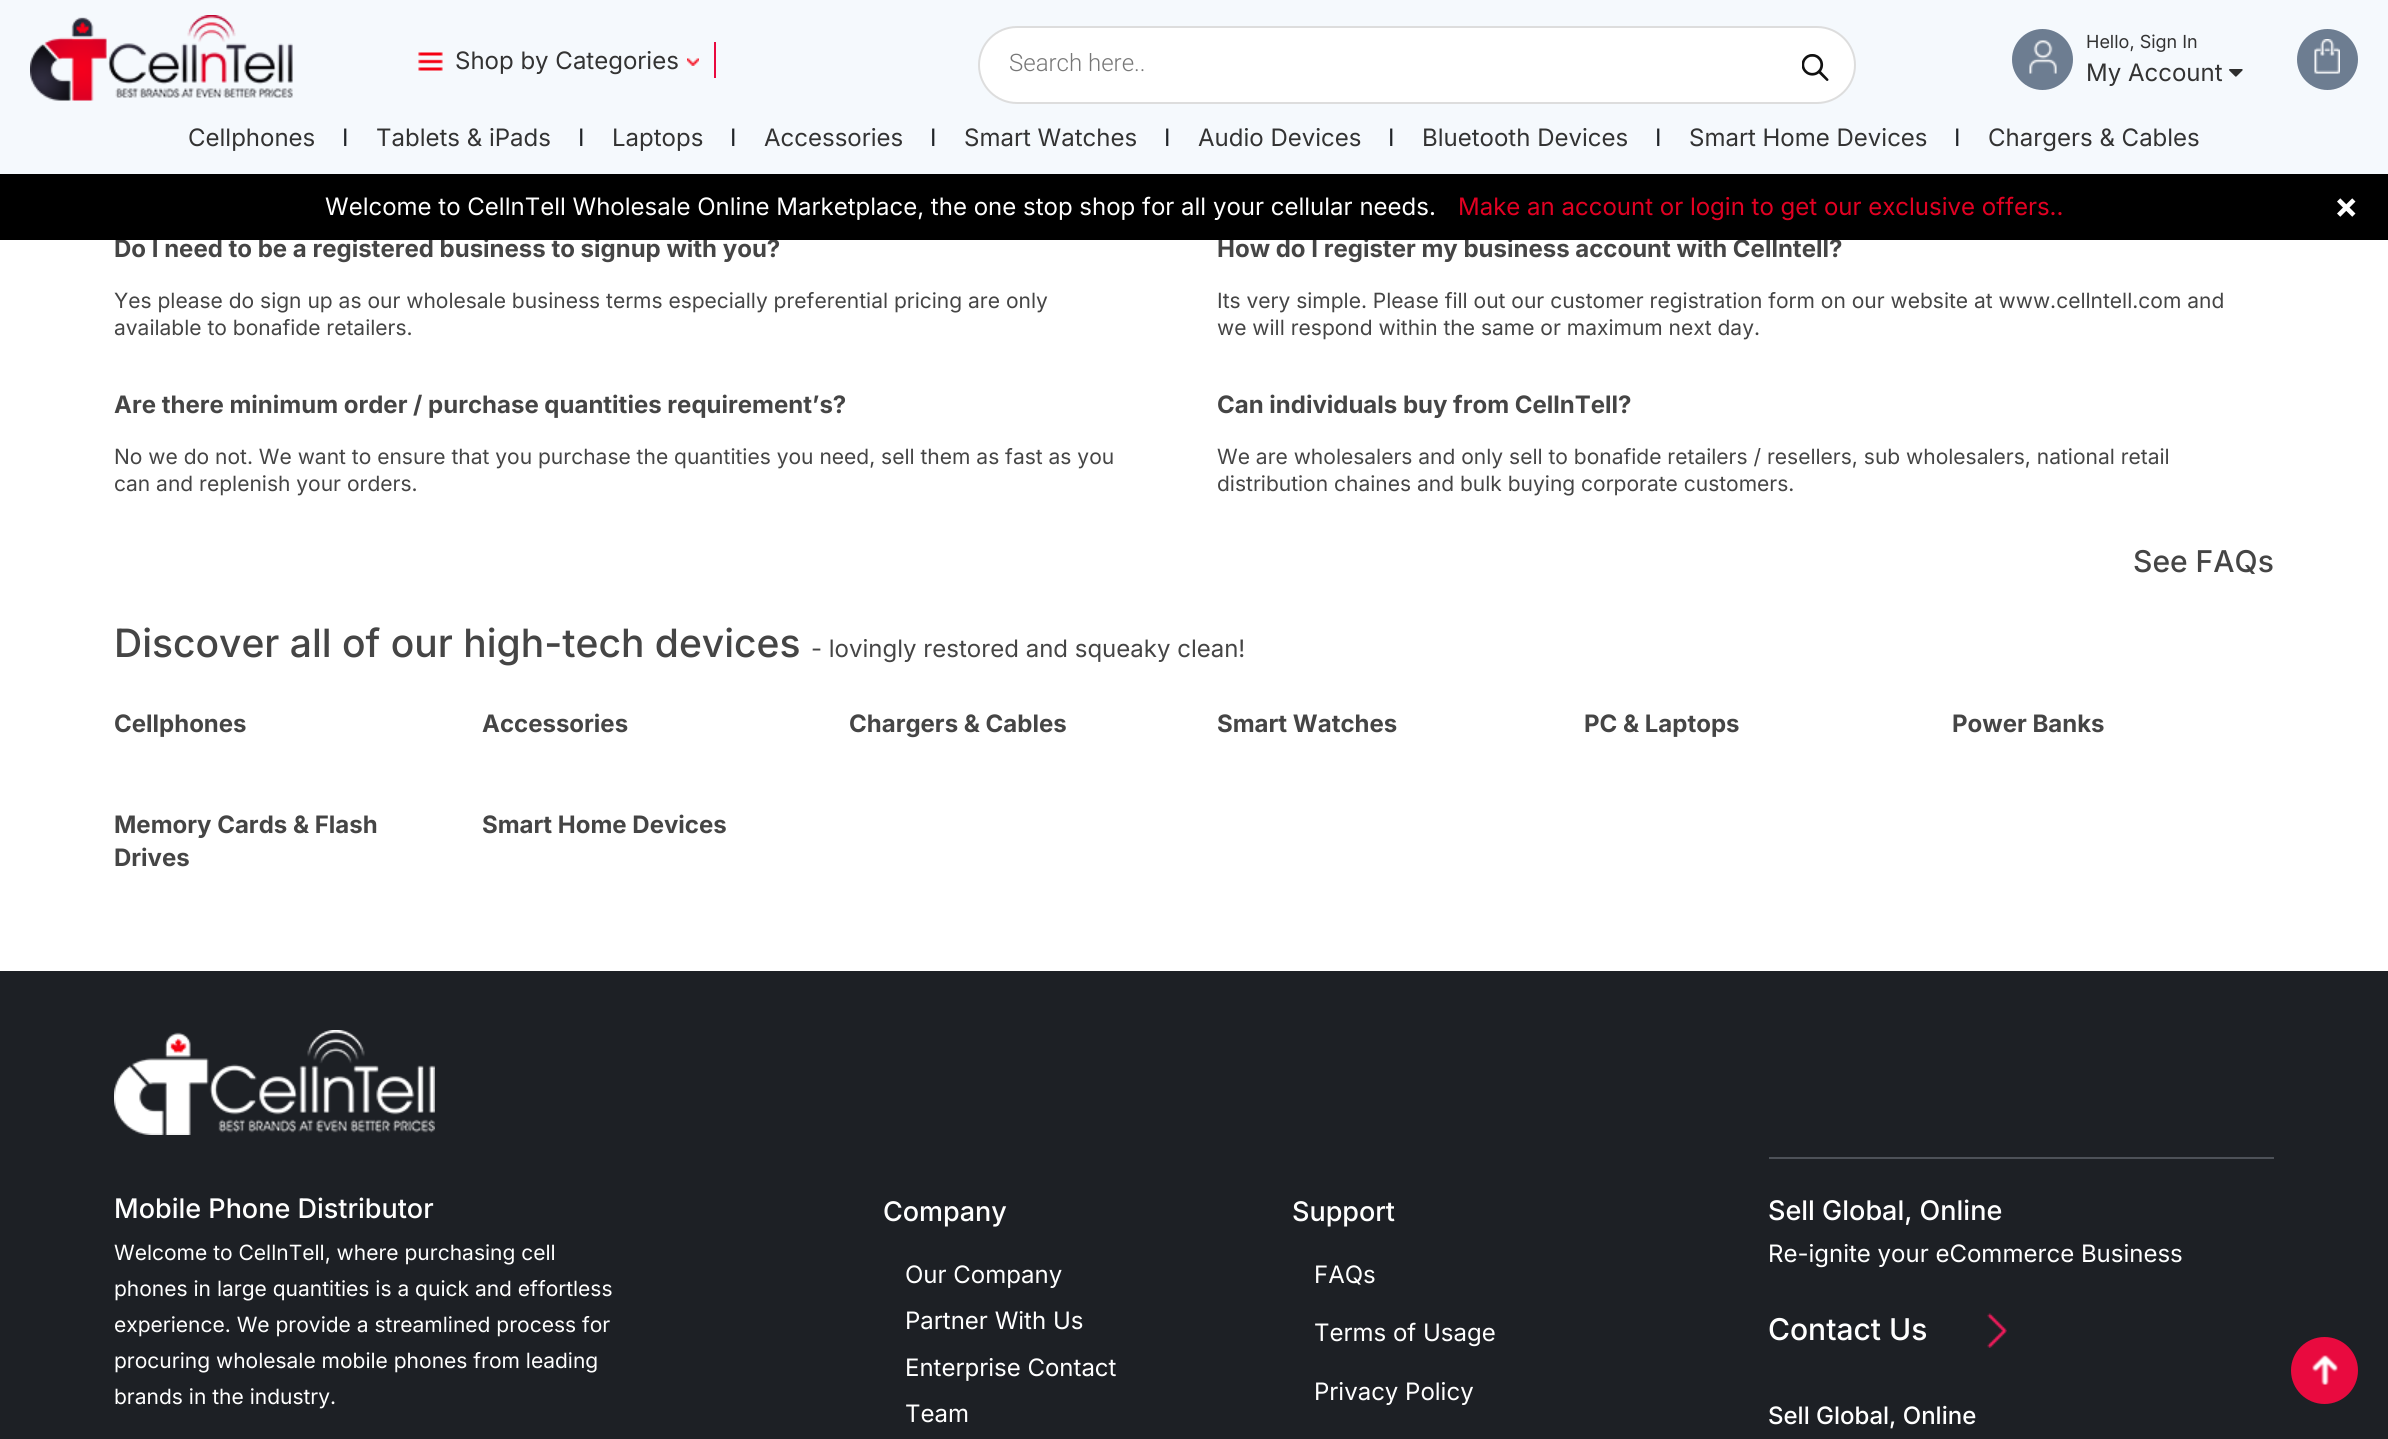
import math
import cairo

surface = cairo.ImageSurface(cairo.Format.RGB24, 2388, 1439)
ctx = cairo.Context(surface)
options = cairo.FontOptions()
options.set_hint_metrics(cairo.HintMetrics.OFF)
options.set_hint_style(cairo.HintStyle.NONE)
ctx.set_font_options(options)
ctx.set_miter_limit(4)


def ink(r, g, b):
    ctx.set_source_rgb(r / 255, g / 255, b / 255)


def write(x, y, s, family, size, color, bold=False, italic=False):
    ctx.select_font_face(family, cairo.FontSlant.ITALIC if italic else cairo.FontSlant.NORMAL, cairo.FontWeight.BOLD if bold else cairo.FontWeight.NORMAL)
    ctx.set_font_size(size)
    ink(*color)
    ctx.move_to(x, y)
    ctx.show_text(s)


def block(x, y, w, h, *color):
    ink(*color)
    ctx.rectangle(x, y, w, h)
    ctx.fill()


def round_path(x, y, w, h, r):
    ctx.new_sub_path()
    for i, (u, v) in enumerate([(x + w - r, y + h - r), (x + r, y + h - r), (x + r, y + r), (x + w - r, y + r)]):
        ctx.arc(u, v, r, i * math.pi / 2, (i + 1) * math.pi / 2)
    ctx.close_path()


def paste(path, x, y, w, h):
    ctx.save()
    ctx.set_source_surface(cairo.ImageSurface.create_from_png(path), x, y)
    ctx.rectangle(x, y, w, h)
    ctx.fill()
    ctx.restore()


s1 = dict(family="Inter", size=24, color=(51, 51, 51))
s2 = dict(family="Roboto Light", size=24, color=(119, 119, 119))
s3 = dict(family="Inter", size=18, color=(51, 51, 51))
s4 = dict(family="Inter", size=24, color=(33, 37, 41))
s5 = dict(family="Inter", size=24, color=(69, 69, 69), bold=True)
s6 = dict(family="Inter", size=24, color=(255, 255, 255))
s7 = dict(family="Inter", size=24, color=(226, 0, 34))
s8 = dict(family="Inter", size=36, color=(255, 255, 255), bold=True)
s9 = dict(family="Inter", size=21, color=(69, 69, 69))
s10 = dict(family="Inter Medium", size=30, color=(69, 69, 69))
s11 = dict(family="Inter Medium", size=39, color=(69, 69, 69))
s12 = dict(family="Inter", size=24, color=(69, 69, 69))
s13 = dict(family="Inter Medium", size=27, color=(255, 255, 255))
s14 = dict(family="Inter", size=21, color=(255, 255, 255))
s15 = dict(family="Inter Medium", size=30, color=(255, 255, 255))
s16 = dict(family="Inter Medium", size=24, color=(255, 255, 255))

ink(255, 255, 255)
ctx.paint()
block(0, 0, 2388, 174, 245, 249, 253)
paste("pic1.png", 30, 15, 263, 86)
paste("pic2.png", 687, 58, 12, 8)
paste("pic3.png", 418, 52, 25, 19)
write(455, 69, "Shop by Categories", **s1)
block(714, 42, 2, 36, 233, 10, 63)
ink(255, 255, 255)
round_path(979, 27, 876, 76, 38)
ctx.fill_preserve()
ink(221, 221, 221)
ctx.stroke()
write(1009, 71, "Search here..", **s2)
paste("pic4.png", 1802, 54, 27, 27)
ink(109, 125, 145)
ctx.arc(2042.5, 59.5, 30.5, 0, 2 * math.pi)
ctx.fill()
paste("pic5.png", 2029, 40, 28, 34)
write(2086, 48, "Hello, Sign In", **s3)
write(2086, 81, "My Account", **s1)
paste("pic6.png", 2229, 69, 14, 8)
ink(109, 125, 145)
ctx.arc(2327.5, 59.5, 30.5, 0, 2 * math.pi)
ctx.fill()
paste("pic7.png", 2314, 39, 26, 35)
write(188, 146, "Cellphones", **s1)
write(342, 146, "I", **s4)
write(376, 146, "Tablets & iPads", **s1)
write(578, 146, "I", **s4)
write(612, 146, "Laptops", **s1)
write(730, 146, "I", **s4)
write(764, 146, "Accessories", **s1)
write(930, 146, "I", **s4)
write(964, 146, "Smart Watches", **s1)
write(1164, 146, "I", **s4)
write(1198, 146, "Audio Devices", **s1)
write(1388, 146, "I", **s4)
write(1422, 146, "Bluetooth Devices", **s1)
write(1655, 146, "I", **s4)
write(1689, 146, "Smart Home Devices", **s1)
write(1954, 146, "I", **s4)
write(1988, 146, "Chargers & Cables", **s1)
write(114, 257, "Do I need to be a registered business to signup with you?", **s5)
write(1217, 257, "How do I register my business account with Cellntell?", **s5)
block(0, 174, 2388, 66, 0, 0, 0)
write(325, 215, "Welcome to CellnTell Wholesale Online Marketplace, the one stop shop for all your cellular needs.", **s6)
write(1458, 215, "Make an account or login to get our exclusive offers..", **s7)
write(2334, 218, "×", **s8)
write(114, 308, "Yes please do sign up as our wholesale business terms especially preferential pricing are only", **s9)
write(114, 335, "available to bonafide retailers.", **s9)
write(1217, 308, "Its very simple. Please fill out our customer registration form on our website at www.cellntell.com and", **s9)
write(1217, 335, "we will respond within the same or maximum next day.", **s9)
write(114, 413, "Are there minimum order / purchase quantities requirement’s?", **s5)
write(114, 464, "No we do not. We want to ensure that you purchase the quantities you need, sell them as fast as you", **s9)
write(114, 491, "can and replenish your orders.", **s9)
write(1217, 413, "Can individuals buy from CellnTell?", **s5)
write(1217, 464, "We are wholesalers and only sell to bonafide retailers / resellers, sub wholesalers, national retail", **s9)
write(1217, 491, "distribution chaines and bulk buying corporate customers.", **s9)
write(2133, 572, "See FAQs", **s10)
write(114, 657, "Discover all of our high-tech devices", **s11)
write(811, 657, "- lovingly restored and squeaky clean!", **s12)
write(114, 732, "Cellphones", **s5)
write(482, 732, "Accessories", **s5)
write(849, 732, "Chargers & Cables", **s5)
write(1217, 732, "Smart Watches", **s5)
write(1584, 732, "PC & Laptops", **s5)
write(1952, 732, "Power Banks", **s5)
write(114, 833, "Memory Cards & Flash", **s5)
write(114, 866, "Drives", **s5)
write(482, 833, "Smart Home Devices", **s5)
block(0, 971, 2388, 468, 29, 32, 37)
paste("pic8.png", 114, 1030, 321, 105)
write(114, 1218, "Mobile Phone Distributor", **s13)
write(114, 1260, "Welcome to CellnTell, where purchasing cell", **s14)
write(114, 1296, "phones in large quantities is a quick and effortless", **s14)
write(114, 1332, "experience. We provide a streamlined process for", **s14)
write(114, 1368, "procuring wholesale mobile phones from leading", **s14)
write(114, 1404, "brands in the industry.", **s14)
write(883, 1221, "Company", **s13)
write(905, 1283, "Our Company", **s6)
write(905, 1329, "Partner With Us", **s6)
write(905, 1376, "Enterprise Contact", **s6)
write(905, 1422, "Team", **s6)
write(1292, 1221, "Support", **s13)
write(1314, 1283, "FAQs", **s6)
write(1314, 1341, "Terms of Usage", **s6)
write(1314, 1400, "Privacy Policy", **s6)
block(1769, 1157, 505, 2, 77, 81, 88)
write(1768, 1220, "Sell Global, Online", **s13)
write(1768, 1262, "Re-ignite your eCommerce Business", **s6)
write(1768, 1340, "Contact Us", **s15)
paste("pic9.png", 1987, 1313, 20, 35)
write(1768, 1424, "Sell Global, Online", **s16)
ink(233, 10, 63)
ctx.new_path()
ctx.arc(2324.5, 1370.5, 33.5, 0, 2 * math.pi)
ctx.fill()
paste("pic10.png", 2312, 1355, 26, 30)
surface.write_to_png("screenshot.png")
